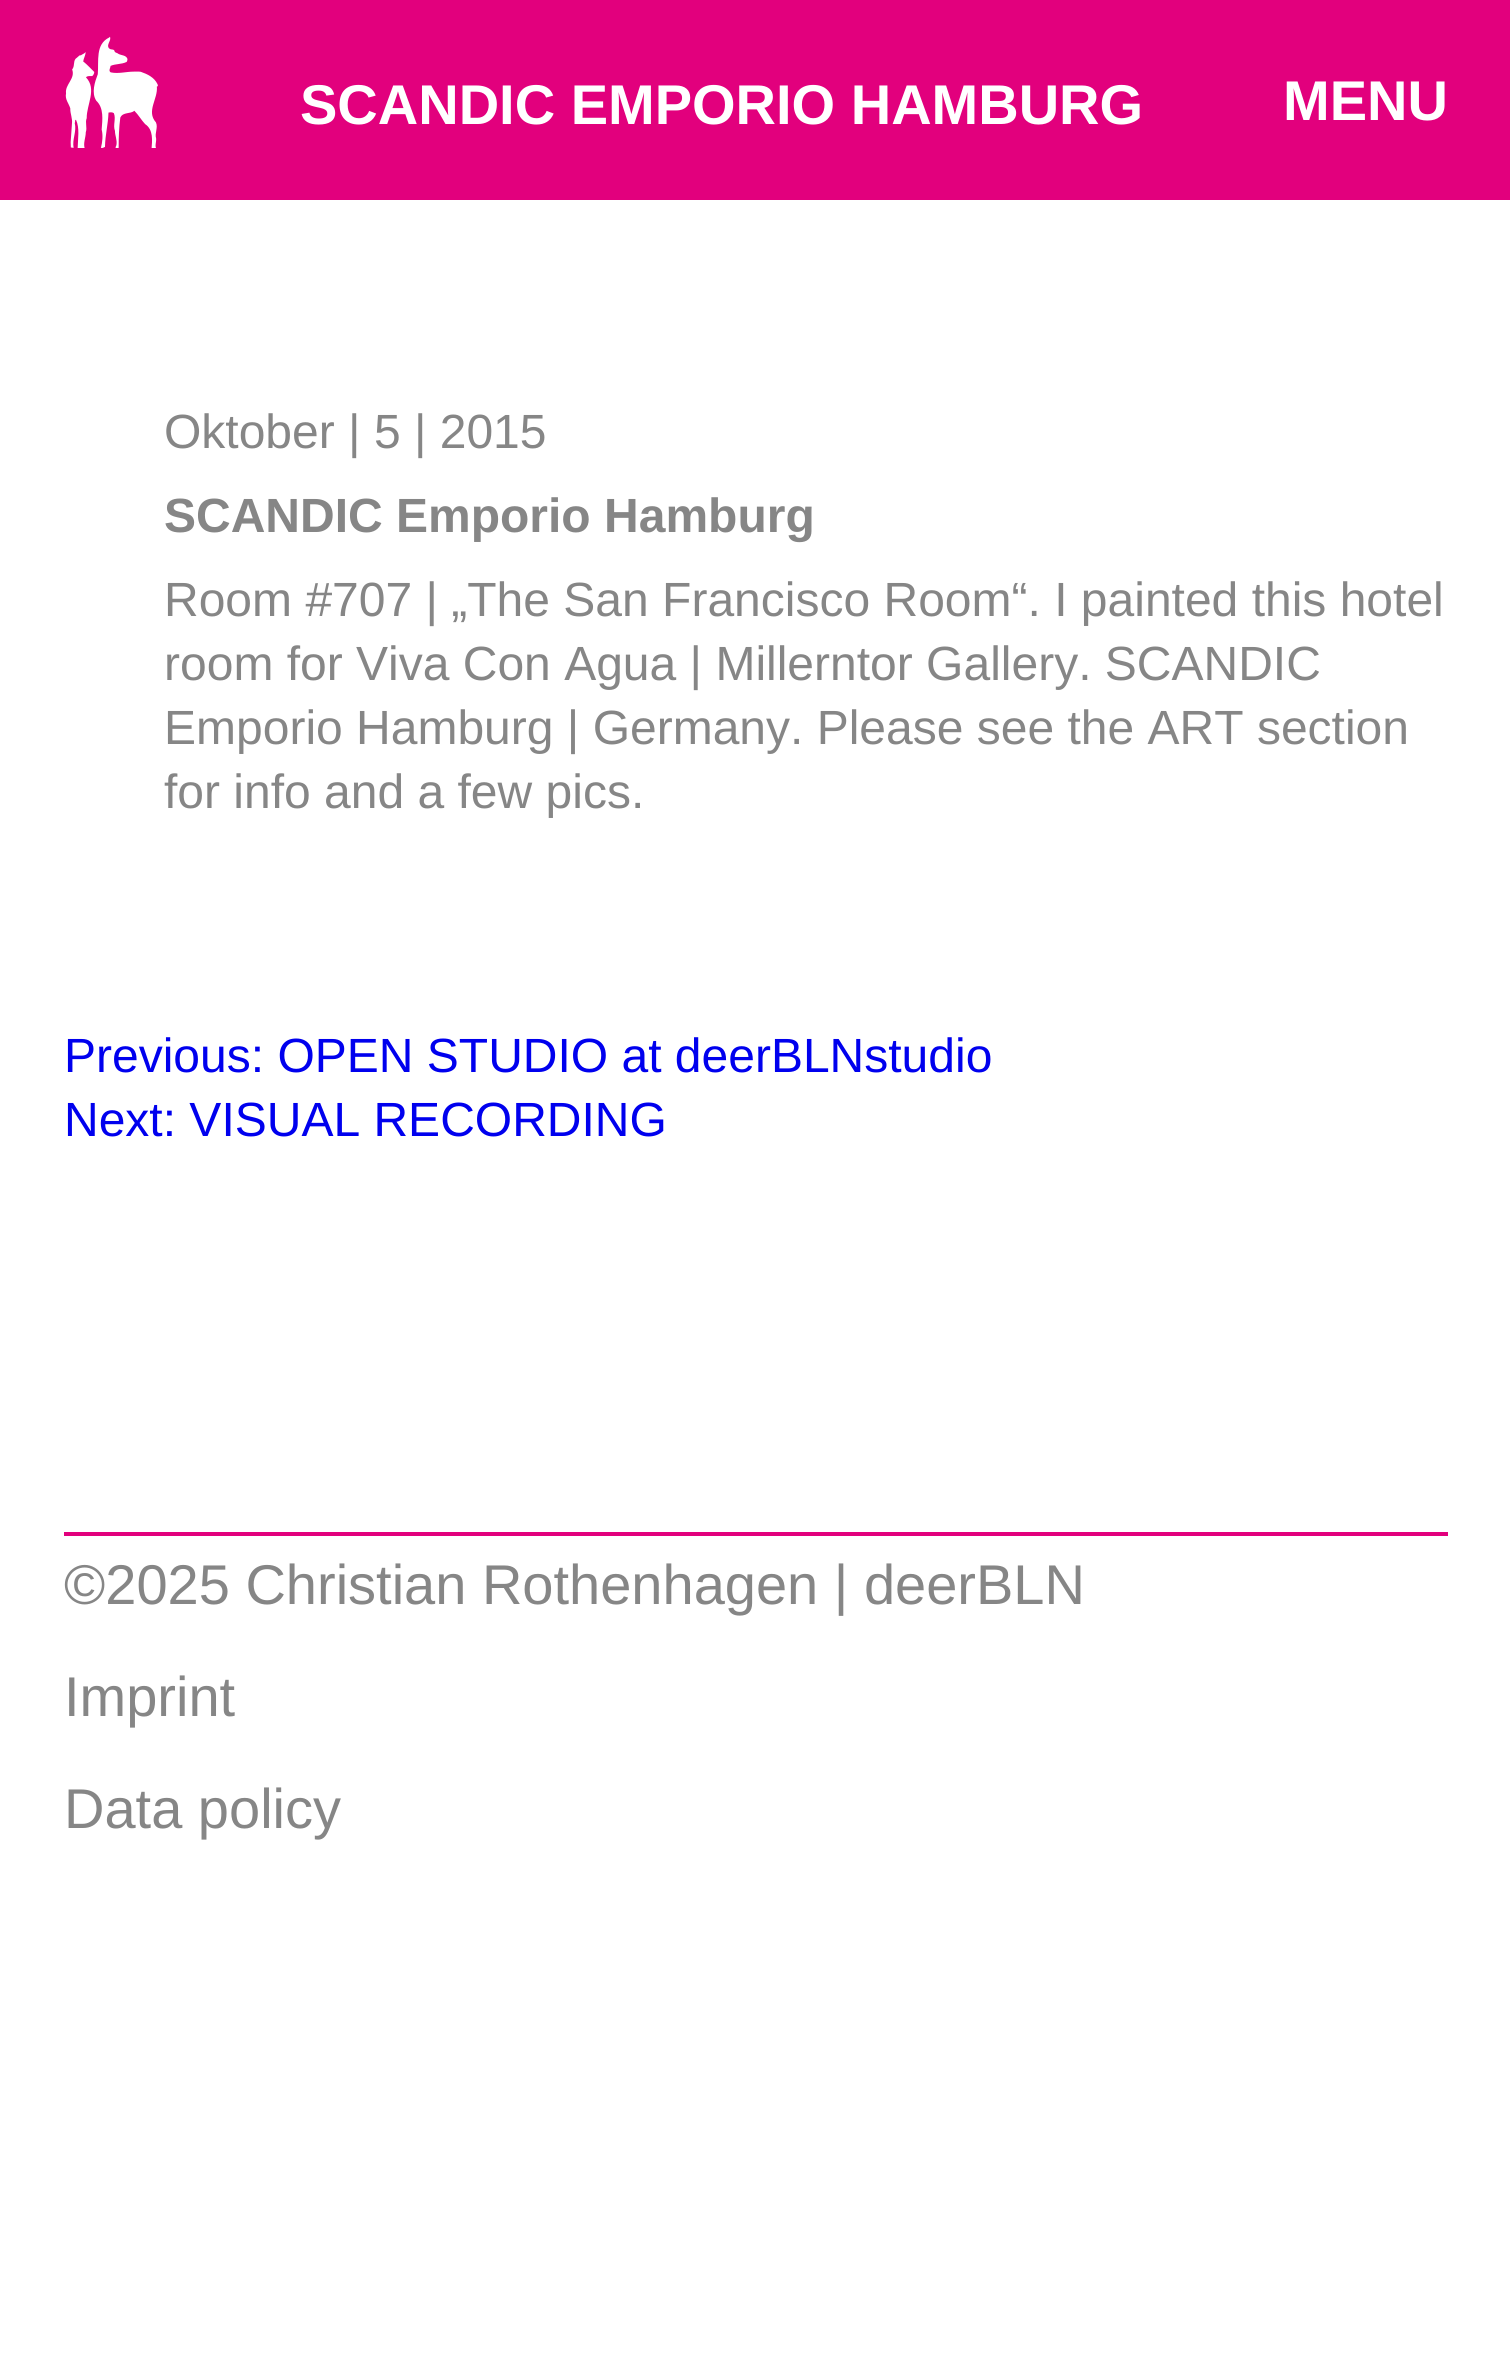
import math
import cairo

surface = cairo.ImageSurface(cairo.Format.RGB24, 1510, 2356)
ctx = cairo.Context(surface)
options = cairo.FontOptions()
options.set_hint_metrics(cairo.HintMetrics.OFF)
options.set_hint_style(cairo.HintStyle.NONE)
ctx.set_font_options(options)
ctx.set_miter_limit(4)


def ink(r, g, b):
    ctx.set_source_rgb(r / 255, g / 255, b / 255)


def write(x, y, s, family, size, color, bold=False, italic=False):
    ctx.select_font_face(family, cairo.FontSlant.ITALIC if italic else cairo.FontSlant.NORMAL, cairo.FontWeight.BOLD if bold else cairo.FontWeight.NORMAL)
    ctx.set_font_size(size)
    ink(*color)
    ctx.move_to(x, y)
    ctx.show_text(s)


def block(x, y, w, h, *color):
    ink(*color)
    ctx.rectangle(x, y, w, h)
    ctx.fill()


def paste(path, x, y, w, h):
    ctx.save()
    ctx.set_source_surface(cairo.ImageSurface.create_from_png(path), x, y)
    ctx.rectangle(x, y, w, h)
    ctx.fill()
    ctx.restore()


s1 = dict(family="Liberation Sans", size=56, color=(255, 255, 255), bold=True)
s2 = dict(family="Liberation Sans", size=48, color=(134, 134, 134))
s3 = dict(family="Liberation Sans", size=48, color=(134, 134, 134), bold=True)
s4 = dict(family="Liberation Sans", size=48, color=(0, 0, 238))
s5 = dict(family="Liberation Sans", size=56, color=(134, 134, 134))

ink(255, 255, 255)
ctx.paint()
block(0, 0, 1510, 200, 226, 0, 125)
paste("pic1.png", 65, 36, 93, 112)
write(300, 124, "SCANDIC EMPORIO HAMBURG", **s1)
write(1283, 120, "MENU", **s1)
write(164, 448, "Oktober | 5 | 2015", **s2)
write(164, 532, "SCANDIC Emporio Hamburg", **s3)
write(164, 616, "Room #707 | „The San Francisco Room“. I painted this hotel", **s2)
write(164, 680, "room for Viva Con Agua | Millerntor Gallery. SCANDIC", **s2)
write(164, 744, "Emporio Hamburg | Germany. Please see the ART section", **s2)
write(164, 808, "for info and a few pics.", **s2)
write(64, 1072, "Previous: OPEN STUDIO at deerBLNstudio", **s4)
write(64, 1136, "Next: VISUAL RECORDING", **s4)
block(64, 1532, 1384, 4, 226, 0, 125)
write(64, 1604, "©2025 Christian Rothenhagen | deerBLN", **s5)
write(64, 1716, "Imprint", **s5)
write(64, 1828, "Data policy", **s5)
surface.write_to_png("screenshot.png")
